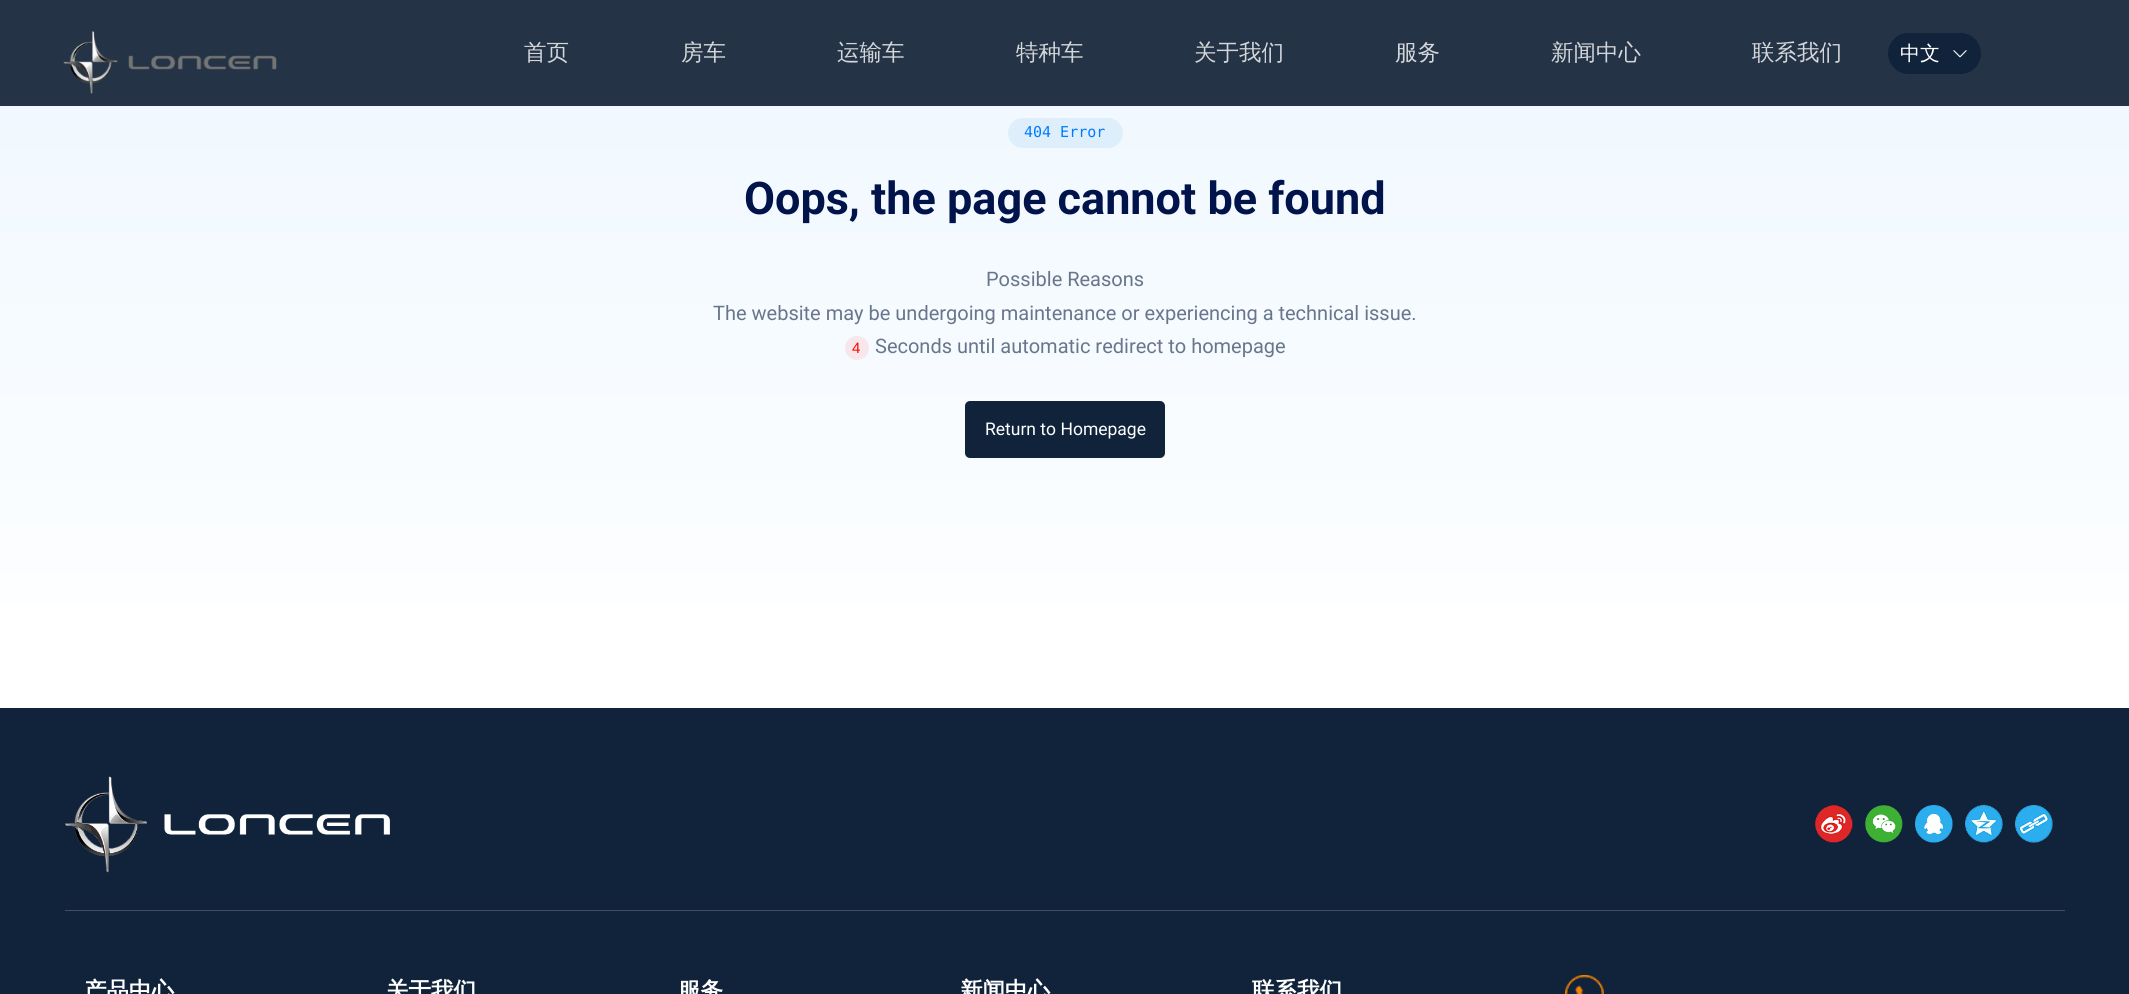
import math
import cairo

surface = cairo.ImageSurface(cairo.Format.RGB24, 2129, 994)
ctx = cairo.Context(surface)
options = cairo.FontOptions()
options.set_hint_metrics(cairo.HintMetrics.OFF)
options.set_hint_style(cairo.HintStyle.NONE)
ctx.set_font_options(options)
ctx.set_miter_limit(4)


def ink(r, g, b):
    ctx.set_source_rgb(r / 255, g / 255, b / 255)


def write(x, y, s, family, size, color, bold=False, italic=False):
    ctx.select_font_face(family, cairo.FontSlant.ITALIC if italic else cairo.FontSlant.NORMAL, cairo.FontWeight.BOLD if bold else cairo.FontWeight.NORMAL)
    ctx.set_font_size(size)
    ink(*color)
    ctx.move_to(x, y)
    ctx.show_text(s)


def block(x, y, w, h, *color):
    ink(*color)
    ctx.rectangle(x, y, w, h)
    ctx.fill()


def round_path(x, y, w, h, r):
    ctx.new_sub_path()
    for i, (u, v) in enumerate([(x + w - r, y + h - r), (x + r, y + h - r), (x + r, y + r), (x + w - r, y + r)]):
        ctx.arc(u, v, r, i * math.pi / 2, (i + 1) * math.pi / 2)
    ctx.close_path()


def paste(path, x, y, w, h):
    ctx.save()
    ctx.set_source_surface(cairo.ImageSurface.create_from_png(path), x, y)
    ctx.rectangle(x, y, w, h)
    ctx.fill()
    ctx.restore()


s1 = dict(family="WenQuanYi Zen Hei Medium", size=22.5, color=(211, 214, 218))
s2 = dict(family="WenQuanYi Zen Hei Medium", size=20, color=(255, 255, 255))
s3 = dict(family="DejaVu Sans Mono", size=15, color=(0, 123, 255))
s4 = dict(family="Roboto", size=45, color=(0, 19, 75), bold=True)
s5 = dict(family="Roboto", size=20, color=(105, 117, 139))
s6 = dict(family="Liberation Sans", size=15, color=(255, 0, 0))
s7 = dict(family="Roboto", size=17.5, color=(255, 255, 255))
s8 = dict(family="WenQuanYi Zen Hei", size=22.5, color=(255, 255, 255), bold=True)

ink(255, 255, 255)
ctx.paint()
gradient = cairo.LinearGradient(1065, 0, 1065, 708)
gradient.add_color_stop_rgba(0, 0.141, 0.2, 0.271, 1)
gradient.add_color_stop_rgba(1, 0.149, 0.204, 0.271, 1)
ctx.set_source(gradient)
ctx.rectangle(0, 0, 2129, 106)
ctx.fill()
paste("pic1.png", 63, 31, 214, 63)
write(524, 60, "首页", **s1)
write(681, 60, "房车", **s1)
write(837, 60, "运输车", **s1)
write(1016, 60, "特种车", **s1)
write(1194, 60, "关于我们", **s1)
write(1395, 60, "服务", **s1)
write(1551, 60, "新闻中心", **s1)
write(1752, 60, "联系我们", **s1)
ink(16, 35, 59)
round_path(1888, 33, 93, 41, 20.5)
ctx.fill()
write(1900, 60, "中文", **s2)
paste("pic2.png", 1953, 50, 14, 8)
gradient = cairo.LinearGradient(1065, 0, 1065, 708)
gradient.add_color_stop_rgba(0, 0.933, 0.969, 1, 1)
gradient.add_color_stop_rgba(1, 1, 1, 1, 1)
ctx.set_source(gradient)
ctx.rectangle(0, 106, 2129, 498)
ctx.fill()
ink(223, 238, 251)
round_path(1008, 118, 115, 30, 15)
ctx.fill()
write(1024, 137, "404 Error", **s3)
write(744, 214, "Oops, the page cannot be found", **s4)
write(986, 286, "Possible Reasons", **s5)
write(713, 320, "The website may be undergoing maintenance or experiencing a technical issue.", **s5)
ink(247, 231, 235)
ctx.new_path()
ctx.arc(857, 348, 12, 0, 2 * math.pi)
ctx.fill()
write(852, 353, "4", **s6)
write(875, 353, "Seconds until automatic redirect to homepage", **s5)
ink(16, 35, 59)
round_path(965, 401, 200, 57, 5)
ctx.fill()
write(985, 435, "Return to Homepage", **s7)
block(0, 708, 2129, 286, 16, 35, 59)
block(65, 910, 2000, 1, 64, 79, 98)
paste("pic3.png", 65, 776, 325, 97)
paste("pic4.png", 1815, 805, 38, 38)
paste("pic5.png", 1865, 805, 38, 38)
paste("pic6.png", 1915, 805, 38, 38)
paste("pic7.png", 1965, 805, 38, 38)
paste("pic8.png", 2015, 805, 38, 38)
write(84, 998, "产品中心", **s8)
write(386, 998, "关于我们", **s8)
write(678, 998, "服务", **s8)
write(960, 998, "新闻中心", **s8)
write(1252, 998, "联系我们", **s8)
paste("pic9.png", 1565, 975, 39, 19)
surface.write_to_png("screenshot.png")
